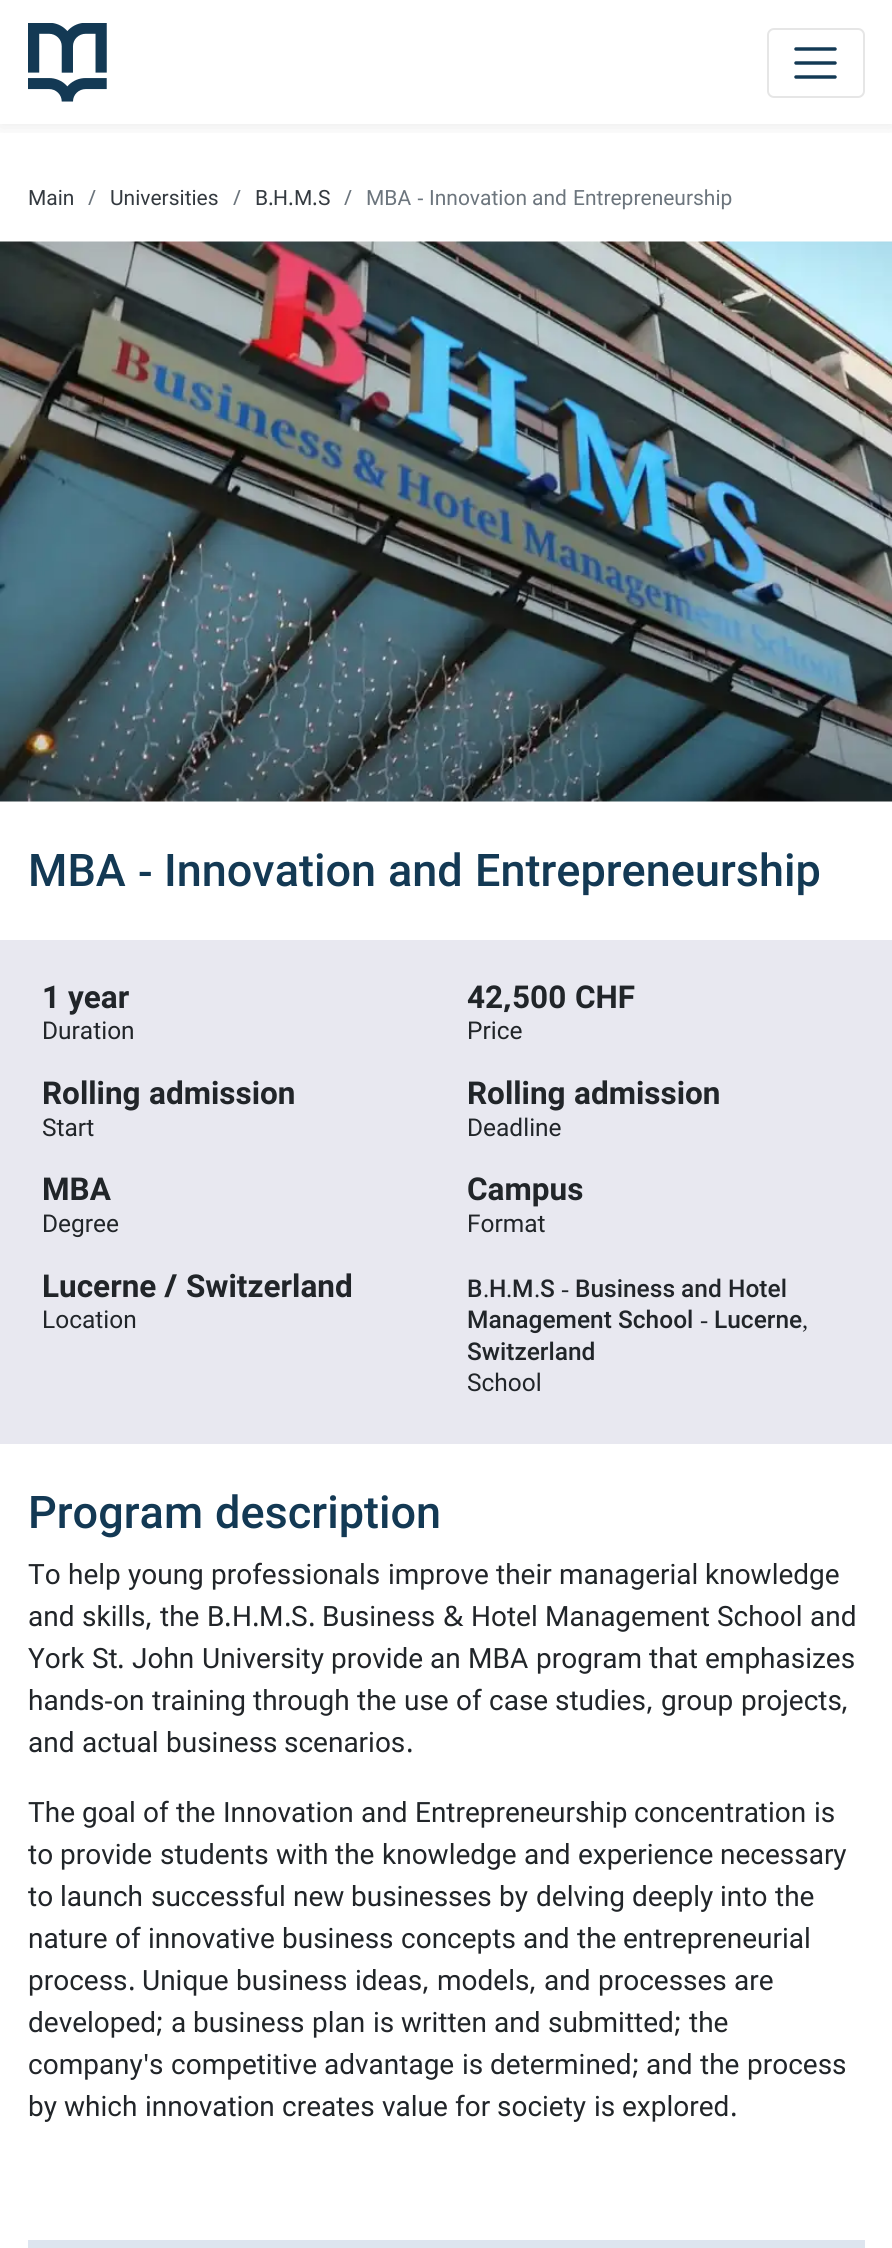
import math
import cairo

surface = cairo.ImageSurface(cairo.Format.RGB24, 892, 2248)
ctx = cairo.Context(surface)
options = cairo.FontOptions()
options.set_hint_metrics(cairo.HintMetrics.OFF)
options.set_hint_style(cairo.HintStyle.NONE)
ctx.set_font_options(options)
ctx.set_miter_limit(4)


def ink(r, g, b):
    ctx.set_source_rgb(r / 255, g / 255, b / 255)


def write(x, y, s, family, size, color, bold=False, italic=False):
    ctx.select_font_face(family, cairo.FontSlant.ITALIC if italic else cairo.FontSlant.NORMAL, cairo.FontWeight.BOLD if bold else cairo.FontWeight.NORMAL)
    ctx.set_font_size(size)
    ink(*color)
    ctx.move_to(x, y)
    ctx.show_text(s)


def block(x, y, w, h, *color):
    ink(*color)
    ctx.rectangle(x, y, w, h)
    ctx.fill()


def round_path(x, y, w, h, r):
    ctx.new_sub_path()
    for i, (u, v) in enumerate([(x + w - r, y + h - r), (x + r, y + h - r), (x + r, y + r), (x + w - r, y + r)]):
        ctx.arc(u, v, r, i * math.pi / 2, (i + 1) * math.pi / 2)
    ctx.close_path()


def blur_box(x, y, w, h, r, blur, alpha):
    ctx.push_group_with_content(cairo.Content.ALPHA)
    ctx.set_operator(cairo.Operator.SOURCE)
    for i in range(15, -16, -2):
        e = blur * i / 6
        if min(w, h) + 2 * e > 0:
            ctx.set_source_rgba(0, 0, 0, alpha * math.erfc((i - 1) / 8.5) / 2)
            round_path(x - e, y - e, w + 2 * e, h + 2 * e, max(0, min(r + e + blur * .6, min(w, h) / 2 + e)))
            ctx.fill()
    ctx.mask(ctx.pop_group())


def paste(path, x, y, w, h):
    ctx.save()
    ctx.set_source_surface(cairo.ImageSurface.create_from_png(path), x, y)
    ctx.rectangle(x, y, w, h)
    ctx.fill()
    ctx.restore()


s1 = dict(family="Roboto", size=21, color=(52, 58, 64))
s2 = dict(family="Noto Sans", size=21, color=(108, 117, 125))
s3 = dict(family="Noto Sans", size=21, color=(52, 58, 64))
s4 = dict(family="Roboto", size=21, color=(108, 117, 125))
s5 = dict(family="Roboto Medium", size=45, color=(19, 57, 84))
s6 = dict(family="Noto Sans Medium", size=45, color=(19, 57, 84))
s7 = dict(family="Roboto", size=31.5, color=(33, 37, 41), bold=True)
s8 = dict(family="Roboto", size=24.5, color=(33, 37, 41))
s9 = dict(family="Noto Sans", size=31.5, color=(33, 37, 41), bold=True)
s10 = dict(family="Roboto Medium", size=24.5, color=(33, 37, 41))
s11 = dict(family="Liberation Serif", size=24.5, color=(33, 37, 41))
s12 = dict(family="Roboto", size=28, color=(33, 37, 41))
s13 = dict(family="Noto Sans", size=28, color=(33, 37, 41))

ink(255, 255, 255)
ctx.paint()
ctx.save()
ctx.rectangle(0, 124, 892, 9)
ctx.clip()
ink(0, 0, 0)
blur_box(0, 0, 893, 124, 0, 10.5, 0.1)
ctx.restore()
paste("pic1.png", 28, 23, 79, 79)
round_path(768, 29, 96, 68, 6)
ink(230, 230, 230)
ctx.stroke()
ctx.new_path()
ctx.move_to(796, 49)
ctx.line_to(835, 49)
ctx.move_to(796, 63)
ctx.line_to(835, 63)
ctx.move_to(796, 77)
ctx.line_to(835, 77)
ink(19, 57, 84)
ctx.set_line_width(3.5)
ctx.set_line_cap(cairo.LineCap.ROUND)
ctx.stroke()
write(28, 205, "Main", **s1)
write(88, 205, "/", **s2)
write(110, 205, "Universities", **s1)
write(233, 205, "/", **s2)
write(255, 205, "B", **s1)
write(268, 205, ".", **s3)
write(273, 205, "H", **s1)
write(288, 205, ".", **s3)
write(294, 205, "M", **s1)
write(312, 205, ".", **s3)
write(318, 205, "S", **s1)
write(344, 205, "/", **s2)
write(366, 205, "MBA", **s4)
write(417, 205, "-", **s2)
write(429, 205, "Innovation", **s4)
write(532, 205, "and", **s4)
write(573, 205, "Entrepreneurship", **s4)
paste("pic2.png", 0, 241, 892, 561)
write(28, 886, "MBA", **s5)
write(138, 886, "-", **s6)
write(164, 886, "Innovation", **s5)
write(388, 886, "and", **s5)
write(475, 886, "Entrepreneurship", **s5)
block(0, 940, 892, 504, 232, 232, 240)
write(42, 1008, "1", **s7)
write(68, 1008, "year", **s7)
write(42, 1039, "Duration", **s8)
write(467, 1008, "42", **s7)
write(503, 1008, ",", **s9)
write(512, 1008, "500", **s7)
write(575, 1008, "CHF", **s7)
write(467, 1039, "Price", **s8)
write(42, 1104, "Rolling", **s7)
write(149, 1104, "admission", **s7)
write(42, 1136, "Start", **s8)
write(467, 1104, "Rolling", **s7)
write(574, 1104, "admission", **s7)
write(467, 1136, "Deadline", **s8)
write(42, 1200, "MBA", **s7)
write(42, 1232, "Degree", **s8)
write(467, 1200, "Campus", **s7)
write(467, 1232, "Format", **s8)
write(42, 1297, "Lucerne", **s7)
write(164, 1297, "/", **s9)
write(186, 1297, "Switzerland", **s7)
write(42, 1328, "Location", **s8)
write(467, 1297, "B", **s10)
write(489, 1297, "H", **s10)
write(512, 1297, "M", **s10)
write(540, 1297, "S", **s10)
write(561, 1297, "-", **s11)
write(575, 1297, "Business", **s10)
write(681, 1297, "and", **s10)
write(728, 1297, "Hotel", **s10)
write(483, 1297, ".", **s11)
write(506, 1297, ".", **s11)
write(534, 1297, ".", **s11)
write(467, 1328, "Management", **s10)
write(618, 1328, "School", **s10)
write(700, 1328, "-", **s11)
write(714, 1328, "Lucerne", **s10)
write(802, 1328, ",", **s11)
write(467, 1360, "Switzerland", **s10)
write(467, 1391, "School", **s8)
write(28, 1528, "Program", **s5)
write(215, 1528, "description", **s5)
write(28, 1584, "To", **s12)
write(68, 1584, "help", **s12)
write(128, 1584, "young", **s12)
write(211, 1584, "professionals", **s12)
write(388, 1584, "improve", **s12)
write(496, 1584, "their", **s12)
write(559, 1584, "managerial", **s12)
write(705, 1584, "knowledge", **s12)
write(28, 1626, "and", **s12)
write(82, 1626, "skills", **s12)
write(145, 1626, ",", **s13)
write(160, 1626, "the", **s12)
write(207, 1626, "B", **s12)
write(224, 1626, ".", **s13)
write(232, 1626, "H", **s12)
write(252, 1626, ".", **s13)
write(259, 1626, "M", **s12)
write(284, 1626, ".", **s13)
write(291, 1626, "S", **s12)
write(308, 1626, ".", **s13)
write(322, 1626, "Business", **s12)
write(443, 1626, "&", **s13)
write(471, 1626, "Hotel", **s12)
write(545, 1626, "Management", **s12)
write(717, 1626, "School", **s12)
write(810, 1626, "and", **s12)
write(28, 1668, "York", **s12)
write(92, 1668, "St", **s12)
write(117, 1668, ".", **s13)
write(132, 1668, "John", **s12)
write(202, 1668, "University", **s12)
write(331, 1668, "provide", **s12)
write(430, 1668, "an", **s12)
write(468, 1668, "MBA", **s12)
write(536, 1668, "program", **s12)
write(649, 1668, "that", **s12)
write(705, 1668, "emphasizes", **s12)
write(28, 1710, "hands", **s12)
write(104, 1710, "-", **s13)
write(113, 1710, "on", **s12)
write(152, 1710, "training", **s12)
write(253, 1710, "through", **s12)
write(357, 1710, "the", **s12)
write(404, 1710, "use", **s12)
write(456, 1710, "of", **s12)
write(489, 1710, "case", **s12)
write(555, 1710, "studies", **s12)
write(661, 1710, "group", **s12)
write(741, 1710, "projects", **s12)
write(646, 1710, ",", **s13)
write(841, 1710, ",", **s13)
write(28, 1752, "and", **s12)
write(82, 1752, "actual", **s12)
write(166, 1752, "business", **s12)
write(284, 1752, "scenarios", **s12)
write(406, 1752, ".", **s13)
write(28, 1822, "The", **s12)
write(82, 1822, "goal", **s12)
write(143, 1822, "of", **s12)
write(176, 1822, "the", **s12)
write(223, 1822, "Innovation", **s12)
write(361, 1822, "and", **s12)
write(415, 1822, "Entrepreneurship", **s12)
write(634, 1822, "concentration", **s12)
write(814, 1822, "is", **s12)
write(28, 1864, "to", **s12)
write(60, 1864, "provide", **s12)
write(160, 1864, "students", **s12)
write(276, 1864, "with", **s12)
write(335, 1864, "the", **s12)
write(382, 1864, "knowledge", **s12)
write(524, 1864, "and", **s12)
write(578, 1864, "experience", **s12)
write(720, 1864, "necessary", **s12)
write(28, 1906, "to", **s12)
write(60, 1906, "launch", **s12)
write(151, 1906, "successful", **s12)
write(293, 1906, "new", **s12)
write(351, 1906, "businesses", **s12)
write(499, 1906, "by", **s12)
write(536, 1906, "delving", **s12)
write(632, 1906, "deeply", **s12)
write(720, 1906, "into", **s12)
write(775, 1906, "the", **s12)
write(28, 1948, "nature", **s12)
write(115, 1948, "of", **s12)
write(148, 1948, "innovative", **s12)
write(282, 1948, "business", **s12)
write(401, 1948, "concepts", **s12)
write(523, 1948, "and", **s12)
write(577, 1948, "the", **s12)
write(623, 1948, "entrepreneurial", **s12)
write(28, 1990, "process", **s12)
write(128, 1990, ".", **s13)
write(142, 1990, "Unique", **s12)
write(236, 1990, "business", **s12)
write(355, 1990, "ideas", **s12)
write(422, 1990, ",", **s13)
write(437, 1990, "models", **s12)
write(529, 1990, ",", **s13)
write(544, 1990, "and", **s12)
write(598, 1990, "processes", **s12)
write(734, 1990, "are", **s12)
write(28, 2032, "developed", **s12)
write(156, 2032, ";", **s13)
write(171, 2032, "a", **s12)
write(193, 2032, "business", **s12)
write(312, 2032, "plan", **s12)
write(373, 2032, "is", **s12)
write(401, 2032, "written", **s12)
write(494, 2032, "and", **s12)
write(548, 2032, "submitted", **s12)
write(674, 2032, ";", **s13)
write(689, 2032, "the", **s12)
write(28, 2074, "company", **s12)
write(143, 2074, "'", **s13)
write(149, 2074, "s", **s12)
write(171, 2074, "competitive", **s12)
write(324, 2074, "advantage", **s12)
write(462, 2074, "is", **s12)
write(490, 2074, "determined", **s12)
write(632, 2074, ";", **s13)
write(646, 2074, "and", **s12)
write(700, 2074, "the", **s12)
write(747, 2074, "process", **s12)
write(28, 2116, "by", **s12)
write(64, 2116, "which", **s12)
write(145, 2116, "innovation", **s12)
write(282, 2116, "creates", **s12)
write(382, 2116, "value", **s12)
write(455, 2116, "for", **s12)
write(497, 2116, "society", **s12)
write(594, 2116, "is", **s12)
write(622, 2116, "explored", **s12)
write(730, 2116, ".", **s13)
block(28, 2240, 837, 8, 221, 229, 239)
surface.write_to_png("screenshot.png")
